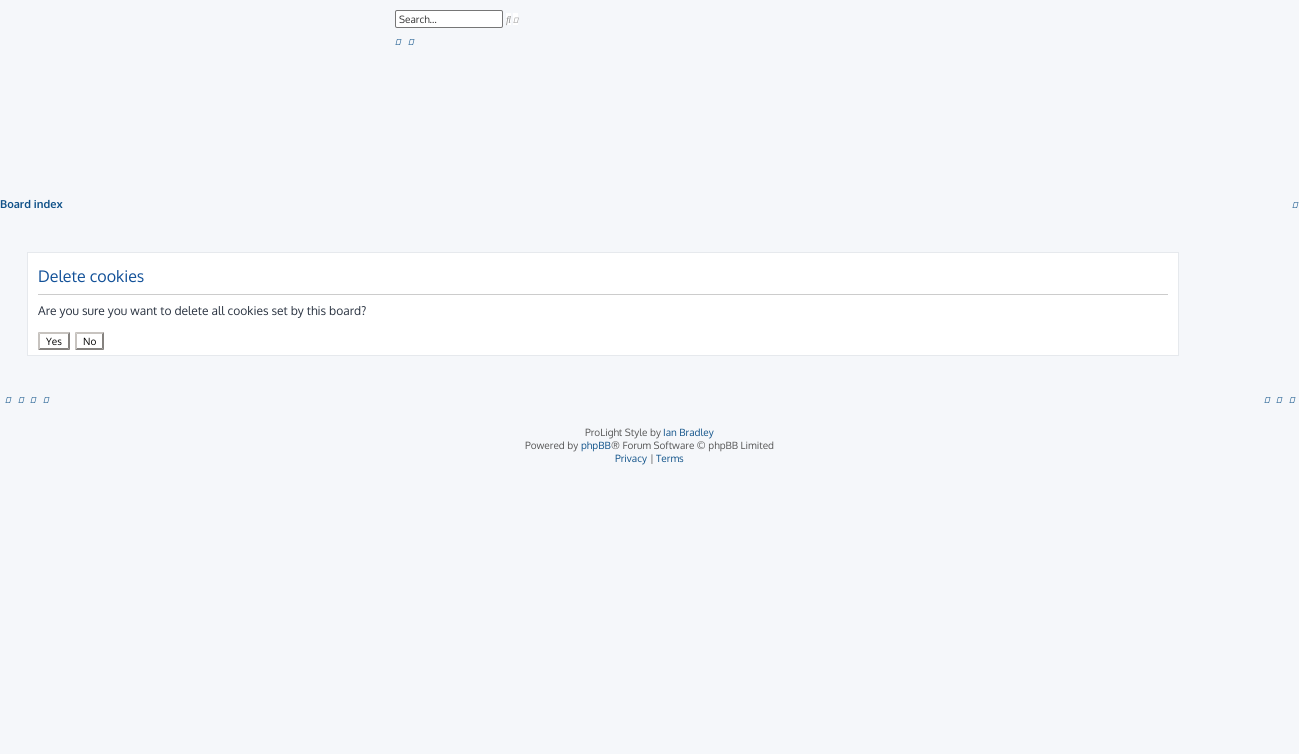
import math
import cairo

surface = cairo.ImageSurface(cairo.Format.RGB24, 1299, 754)
ctx = cairo.Context(surface)
options = cairo.FontOptions()
options.set_hint_metrics(cairo.HintMetrics.OFF)
options.set_hint_style(cairo.HintStyle.NONE)
ctx.set_font_options(options)
ctx.set_miter_limit(4)


def ink(r, g, b):
    ctx.set_source_rgb(r / 255, g / 255, b / 255)


def write(x, y, s, family, size, color, bold=False, italic=False):
    ctx.select_font_face(family, cairo.FontSlant.ITALIC if italic else cairo.FontSlant.NORMAL, cairo.FontWeight.BOLD if bold else cairo.FontWeight.NORMAL)
    ctx.set_font_size(size)
    ink(*color)
    ctx.move_to(x, y)
    ctx.show_text(s)


def block(x, y, w, h, *color):
    ink(*color)
    ctx.rectangle(x, y, w, h)
    ctx.fill()


def round_path(x, y, w, h, r):
    ctx.new_sub_path()
    for i, (u, v) in enumerate([(x + w - r, y + h - r), (x + r, y + h - r), (x + r, y + r), (x + w - r, y + r)]):
        ctx.arc(u, v, r, i * math.pi / 2, (i + 1) * math.pi / 2)
    ctx.close_path()


def paste(path, x, y, w, h):
    ctx.save()
    ctx.set_source_surface(cairo.ImageSurface.create_from_png(path), x, y)
    ctx.rectangle(x, y, w, h)
    ctx.fill()
    ctx.restore()


s1 = dict(family="Oxygen", size=10, color=(51, 51, 51))
s2 = dict(family="Oxygen", size=11, color=(16, 82, 137), bold=True)
s3 = dict(family="Oxygen", size=16, color=(17, 80, 152))
s4 = dict(family="Oxygen", size=12, color=(40, 49, 63))
s5 = dict(family="Oxygen", size=10, color=(0, 0, 0))
s6 = dict(family="Oxygen", size=10, color=(85, 85, 85))
s7 = dict(family="Oxygen", size=10, color=(16, 82, 137))

ink(245, 247, 250)
ctx.paint()
ink(255, 255, 255)
round_path(395.5, 10.5, 107, 17, 1.5)
ctx.fill_preserve()
ink(118, 118, 118)
ctx.set_line_width(1)
ctx.stroke()
write(399, 23, "Search…", **s1)
block(506, 13, 5, 12, 255, 255, 255)
paste("pic1.png", 506, 16, 5, 10)
block(513, 13, 5, 12, 255, 255, 255)
paste("pic2.png", 513, 17, 6, 6)
paste("pic3.png", 395, 39, 7, 6)
paste("pic3.png", 408, 39, 7, 6)
write(0, 208, "Board index", **s2)
paste("pic3.png", 1292, 202, 7, 6)
ink(255, 255, 255)
ctx.rectangle(27.5, 252.5, 1151, 103)
ctx.fill_preserve()
ink(230, 233, 237)
ctx.stroke()
block(38, 294, 1130, 1, 204, 204, 204)
write(38, 282, "Delete cookies", **s3)
write(38, 315, "Are you sure you want to delete all cookies set by this board?", **s4)
ink(199, 195, 191)
ctx.new_path()
ctx.move_to(38, 332)
ctx.line_to(70, 332)
ctx.line_to(68, 334)
ctx.line_to(40, 334)
ctx.close_path()
ctx.fill()
ink(133, 130, 127)
ctx.new_path()
ctx.move_to(70, 332)
ctx.line_to(70, 350)
ctx.line_to(68, 348)
ctx.line_to(68, 334)
ctx.close_path()
ctx.fill()
ctx.new_path()
ctx.move_to(70, 350)
ctx.line_to(38, 350)
ctx.line_to(40, 348)
ctx.line_to(68, 348)
ctx.close_path()
ctx.fill()
ink(199, 195, 191)
ctx.new_path()
ctx.move_to(38, 350)
ctx.line_to(38, 332)
ctx.line_to(40, 334)
ctx.line_to(40, 348)
ctx.close_path()
ctx.fill()
write(46, 345, "Yes", **s5)
ink(199, 195, 191)
ctx.new_path()
ctx.move_to(75, 332)
ctx.line_to(104, 332)
ctx.line_to(102, 334)
ctx.line_to(77, 334)
ctx.close_path()
ctx.fill()
ink(133, 130, 127)
ctx.new_path()
ctx.move_to(104, 332)
ctx.line_to(104, 350)
ctx.line_to(102, 348)
ctx.line_to(102, 334)
ctx.close_path()
ctx.fill()
ctx.new_path()
ctx.move_to(104, 350)
ctx.line_to(75, 350)
ctx.line_to(77, 348)
ctx.line_to(102, 348)
ctx.close_path()
ctx.fill()
ink(199, 195, 191)
ctx.new_path()
ctx.move_to(75, 350)
ctx.line_to(75, 332)
ctx.line_to(77, 334)
ctx.line_to(77, 348)
ctx.close_path()
ctx.fill()
write(83, 345, "No", **s5)
paste("pic3.png", 5, 397, 7, 6)
paste("pic3.png", 18, 397, 7, 6)
paste("pic3.png", 30, 397, 7, 6)
paste("pic3.png", 43, 397, 7, 6)
paste("pic3.png", 1264, 397, 7, 6)
paste("pic3.png", 1276, 397, 7, 6)
paste("pic3.png", 1289, 397, 7, 6)
write(585, 436, "ProLight Style by", **s6)
write(663, 436, "Ian Bradley", **s7)
write(525, 449, "Powered by", **s6)
write(581, 449, "phpBB", **s7)
write(611, 449, "® Forum Software © phpBB Limited", **s6)
write(615, 462, "Privacy", **s7)
write(650, 462, "|", **s6)
write(656, 462, "Terms", **s7)
surface.write_to_png("screenshot.png")
